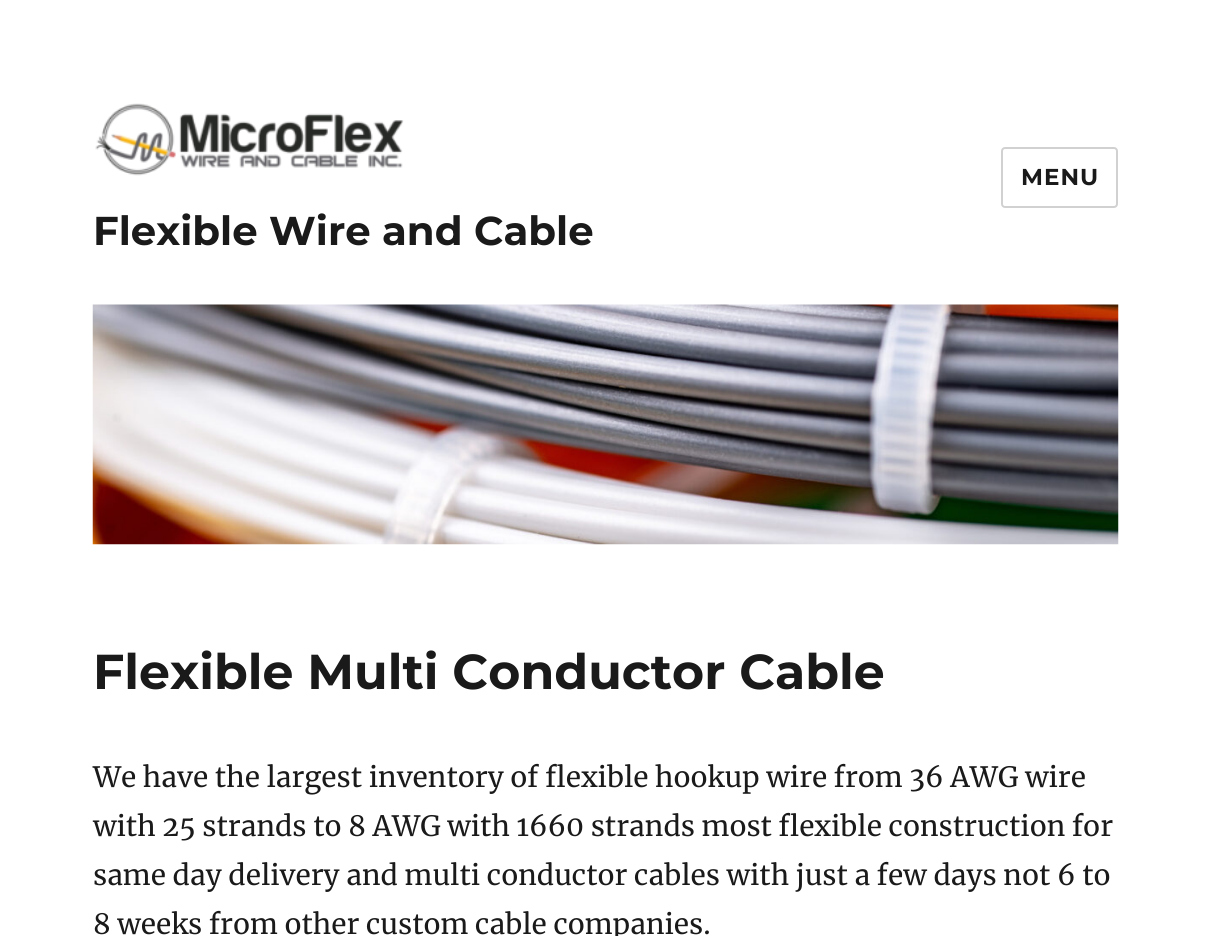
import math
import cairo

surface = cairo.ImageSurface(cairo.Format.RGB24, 1211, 936)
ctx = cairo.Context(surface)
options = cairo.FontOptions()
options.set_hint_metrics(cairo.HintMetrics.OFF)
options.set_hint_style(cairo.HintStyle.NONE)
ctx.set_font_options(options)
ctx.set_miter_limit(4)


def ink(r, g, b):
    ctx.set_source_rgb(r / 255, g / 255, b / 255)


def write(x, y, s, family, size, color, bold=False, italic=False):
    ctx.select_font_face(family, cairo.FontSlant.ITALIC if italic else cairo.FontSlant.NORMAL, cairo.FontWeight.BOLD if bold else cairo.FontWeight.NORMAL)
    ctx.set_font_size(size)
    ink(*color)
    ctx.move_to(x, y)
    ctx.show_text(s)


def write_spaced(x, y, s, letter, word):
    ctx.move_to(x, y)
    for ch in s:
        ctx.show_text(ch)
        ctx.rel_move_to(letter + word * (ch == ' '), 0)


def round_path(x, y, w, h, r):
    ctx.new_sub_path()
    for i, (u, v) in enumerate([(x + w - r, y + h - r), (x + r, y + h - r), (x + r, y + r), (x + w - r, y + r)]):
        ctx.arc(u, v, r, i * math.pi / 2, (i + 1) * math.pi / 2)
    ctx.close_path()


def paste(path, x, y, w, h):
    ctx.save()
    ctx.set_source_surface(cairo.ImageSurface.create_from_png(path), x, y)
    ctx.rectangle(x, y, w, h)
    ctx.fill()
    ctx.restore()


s1 = dict(family="Montserrat Thin", size=40.25, color=(26, 26, 26))
s2 = dict(family="Montserrat Thin", size=49, color=(26, 26, 26))
s3 = dict(family="Merriweather", size=28, color=(26, 26, 26))

ink(255, 255, 255)
ctx.paint()
round_path(1002, 148, 115, 59, 3)
ink(209, 209, 209)
ctx.stroke()
ctx.select_font_face("Montserrat Thin")
ctx.set_font_size(23)
ink(26, 26, 26)
write_spaced(1021, 185, "MENU", 1, 0)
paste("pic1.png", 95, 103, 309, 73)
write(93, 245, "Flexible Wire and Cable", **s1)
paste("pic2.png", 92, 304, 1027, 241)
write(93, 689, "Flexible Multi Conductor Cable", **s2)
write(93, 787, "We have the largest inventory of flexible hookup wire from 36 AWG wire", **s3)
write(93, 836, "with 25 strands to 8 AWG with 1660 strands most flexible construction for", **s3)
write(93, 885, "same day delivery and multi conductor cables with just a few days not 6 to", **s3)
write(93, 934, "8 weeks from other custom cable companies.", **s3)
surface.write_to_png("screenshot.png")
